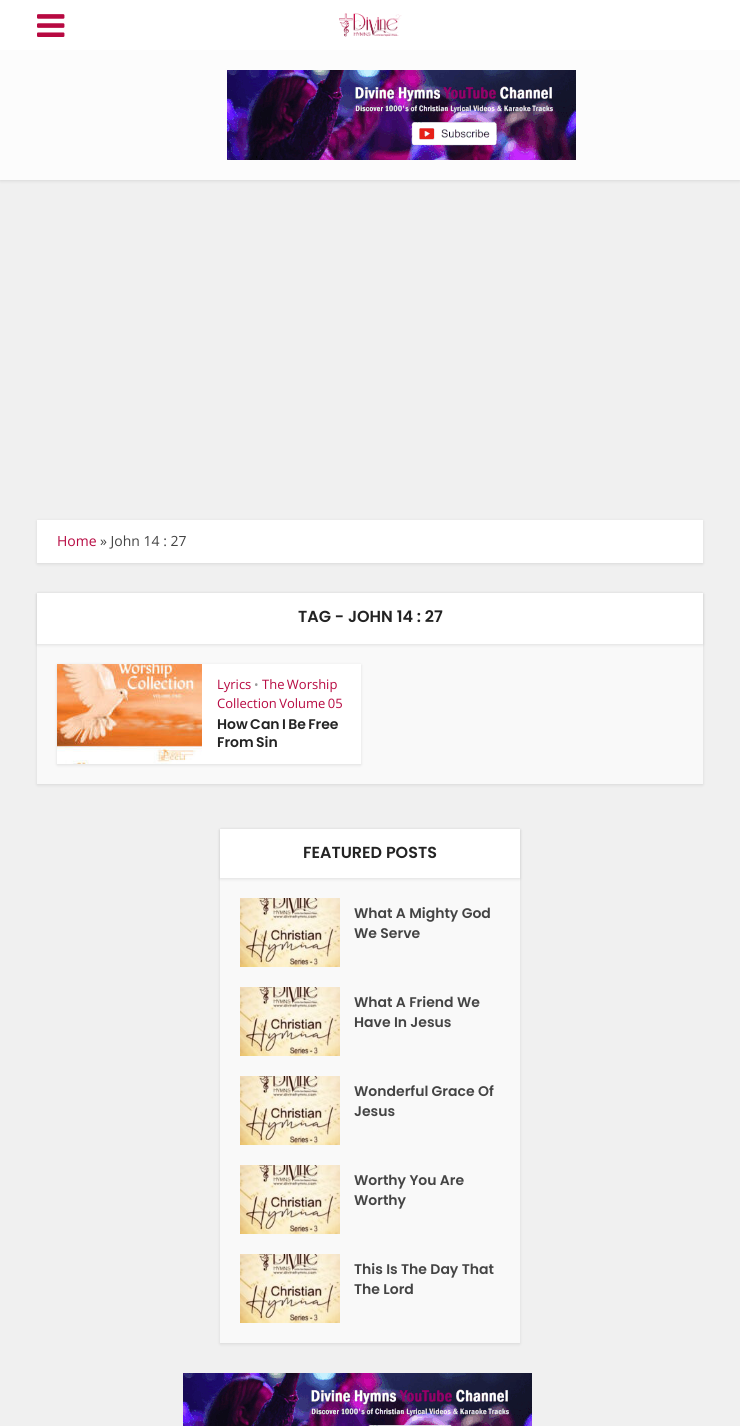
import math
import cairo

surface = cairo.ImageSurface(cairo.Format.RGB24, 740, 1426)
ctx = cairo.Context(surface)
options = cairo.FontOptions()
options.set_hint_metrics(cairo.HintMetrics.OFF)
options.set_hint_style(cairo.HintStyle.NONE)
ctx.set_font_options(options)
ctx.set_miter_limit(4)


def ink(r, g, b):
    ctx.set_source_rgb(r / 255, g / 255, b / 255)


def write(x, y, s, family, size, color, bold=False, italic=False):
    ctx.select_font_face(family, cairo.FontSlant.ITALIC if italic else cairo.FontSlant.NORMAL, cairo.FontWeight.BOLD if bold else cairo.FontWeight.NORMAL)
    ctx.set_font_size(size)
    ink(*color)
    ctx.move_to(x, y)
    ctx.show_text(s)


def write_spaced(x, y, s, letter, word):
    ctx.move_to(x, y)
    for ch in s:
        ctx.show_text(ch)
        ctx.rel_move_to(letter + word * (ch == ' '), 0)


def block(x, y, w, h, *color):
    ink(*color)
    ctx.rectangle(x, y, w, h)
    ctx.fill()


def round_path(x, y, w, h, r):
    ctx.new_sub_path()
    for i, (u, v) in enumerate([(x + w - r, y + h - r), (x + r, y + h - r), (x + r, y + r), (x + w - r, y + r)]):
        ctx.arc(u, v, r, i * math.pi / 2, (i + 1) * math.pi / 2)
    ctx.close_path()


def blur_box(x, y, w, h, r, blur, alpha):
    ctx.push_group_with_content(cairo.Content.ALPHA)
    ctx.set_operator(cairo.Operator.SOURCE)
    for i in range(15, -16, -2):
        e = blur * i / 6
        if min(w, h) + 2 * e > 0:
            ctx.set_source_rgba(0, 0, 0, alpha * math.erfc((i - 1) / 8.5) / 2)
            round_path(x - e, y - e, w + 2 * e, h + 2 * e, max(0, min(r + e + blur * .6, min(w, h) / 2 + e)))
            ctx.fill()
    ctx.mask(ctx.pop_group())


def paste(path, x, y, w, h):
    ctx.save()
    ctx.set_source_surface(cairo.ImageSurface.create_from_png(path), x, y)
    ctx.rectangle(x, y, w, h)
    ctx.fill()
    ctx.restore()


s1 = dict(family="Open Sans", size=14, color=(183, 9, 65))
s2 = dict(family="Open Sans", size=14, color=(68, 68, 68))
s3 = dict(family="Poppins SemiBold", size=16, color=(35, 35, 35))
s4 = dict(family="Open Sans", size=13, color=(183, 9, 65))
s5 = dict(family="Open Sans", size=12, color=(155, 155, 155))
s6 = dict(family="Poppins SemiBold", size=14, color=(68, 68, 68))

ink(240, 240, 240)
ctx.paint()
ink(0, 0, 0)
blur_box(0, 1, 740, 180, 0, 1.5, 0.1)
block(0, 0, 740, 50, 255, 255, 255)
paste("pic1.png", 37, 14, 28, 23)
paste("pic2.png", 339, 13, 63, 24)
block(0, 50, 740, 130, 252, 252, 252)
paste("pic3.png", 227, 70, 349, 90)
ink(0, 0, 0)
blur_box(37, 521, 666, 43, 0, 1.5, 0.1)
block(37, 520, 666, 43, 255, 255, 255)
write(57, 546, "Home", **s1)
write(100, 546, "» John 14 : 27", **s2)
ink(0, 0, 0)
blur_box(37, 594, 666, 191, 0, 1.5, 0.1)
block(37, 644, 666, 140, 249, 249, 249)
ink(0, 0, 0)
blur_box(37, 594, 666, 51, 0, 1.5, 0.1)
block(37, 593, 666, 51, 255, 255, 255)
write(298, 622, "TAG - JOHN 14 : 27", **s3)
ink(0, 0, 0)
blur_box(57, 665, 304, 100, 0, 1.5, 0.1)
block(202, 664, 159, 100, 255, 255, 255)
paste("pic4.png", 57, 664, 145, 100)
write(217, 689, "Lyrics", **s4)
write(254, 689, "•", **s5)
ctx.set_font_size(13)
ink(183, 9, 65)
write_spaced(262, 689, "The Worship", 0, -1)
write_spaced(217, 708, "Collection Volume 05", 0, -1)
ctx.select_font_face("Poppins SemiBold")
ctx.set_font_size(14)
ink(35, 35, 35)
write_spaced(217, 729, "How Can I Be Free", 0, -1)
write_spaced(217, 747, "From Sin", 0, -1)
ink(0, 0, 0)
blur_box(220, 830, 300, 514, 0, 1.5, 0.1)
block(220, 878, 300, 465, 249, 249, 249)
ink(0, 0, 0)
blur_box(220, 830, 300, 49, 0, 1.5, 0.1)
block(220, 829, 300, 49, 255, 255, 255)
write(303, 858, "FEATURED POSTS", **s3)
paste("pic5.png", 240, 898, 100, 69)
write(354, 918, "What A Mighty God", **s6)
write(354, 938, "We Serve", **s6)
paste("pic5.png", 240, 987, 100, 69)
write(354, 1007, "What A Friend We", **s6)
write(354, 1027, "Have In Jesus", **s6)
paste("pic5.png", 240, 1076, 100, 69)
write(354, 1096, "Wonderful Grace Of", **s6)
write(354, 1116, "Jesus", **s6)
paste("pic5.png", 240, 1165, 100, 69)
write(354, 1185, "Worthy You Are", **s6)
write(354, 1205, "Worthy", **s6)
paste("pic5.png", 240, 1254, 100, 69)
write(354, 1274, "This Is The Day That", **s6)
write(354, 1294, "The Lord", **s6)
paste("pic6.png", 183, 1373, 349, 53)
surface.write_to_png("screenshot.png")
